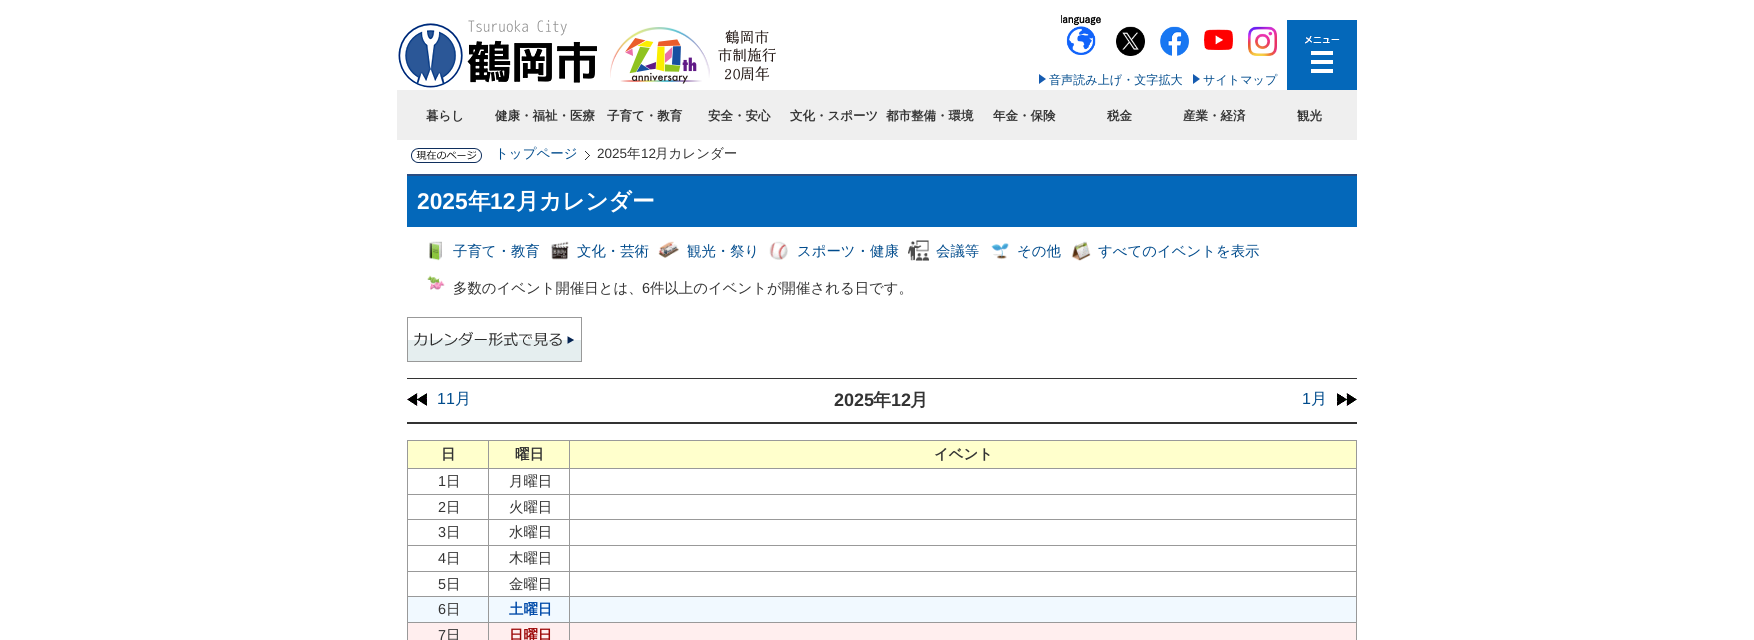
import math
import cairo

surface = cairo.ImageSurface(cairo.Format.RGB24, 1754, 640)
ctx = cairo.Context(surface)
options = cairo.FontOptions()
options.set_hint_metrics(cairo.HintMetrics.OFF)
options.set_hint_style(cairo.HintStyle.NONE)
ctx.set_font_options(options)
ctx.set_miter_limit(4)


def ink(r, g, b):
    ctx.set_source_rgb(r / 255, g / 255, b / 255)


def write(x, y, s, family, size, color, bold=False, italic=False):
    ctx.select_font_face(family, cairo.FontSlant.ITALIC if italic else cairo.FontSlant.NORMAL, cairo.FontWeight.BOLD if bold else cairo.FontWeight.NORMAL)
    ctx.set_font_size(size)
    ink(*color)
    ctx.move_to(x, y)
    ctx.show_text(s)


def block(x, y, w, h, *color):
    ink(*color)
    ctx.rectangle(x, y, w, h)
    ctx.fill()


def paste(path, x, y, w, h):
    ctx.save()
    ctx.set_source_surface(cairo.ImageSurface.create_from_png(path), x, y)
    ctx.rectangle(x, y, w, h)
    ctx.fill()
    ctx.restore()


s1 = dict(family="WenQuanYi Zen Hei Medium", size=12.1, color=(0, 75, 140))
s2 = dict(family="WenQuanYi Zen Hei", size=12.5, color=(51, 51, 51), bold=True)
s3 = dict(family="WenQuanYi Zen Hei Medium", size=13.5, color=(0, 75, 140))
s4 = dict(family="Liberation Sans", size=13.5, color=(51, 51, 51))
s5 = dict(family="WenQuanYi Zen Hei Medium", size=13.5, color=(51, 51, 51))
s6 = dict(family="Liberation Sans", size=22.75, color=(255, 255, 255), bold=True)
s7 = dict(family="WenQuanYi Zen Hei", size=22.75, color=(255, 255, 255), bold=True)
s8 = dict(family="WenQuanYi Zen Hei Medium", size=14.4, color=(0, 75, 140))
s9 = dict(family="WenQuanYi Zen Hei Medium", size=14.4, color=(51, 51, 51))
s10 = dict(family="Liberation Sans", size=14.4, color=(51, 51, 51))
s11 = dict(family="Liberation Sans", size=16, color=(0, 75, 140))
s12 = dict(family="WenQuanYi Zen Hei Medium", size=16, color=(0, 75, 140))
s13 = dict(family="Liberation Sans", size=18, color=(51, 51, 51), bold=True)
s14 = dict(family="WenQuanYi Zen Hei", size=18, color=(51, 51, 51), bold=True)
s15 = dict(family="WenQuanYi Zen Hei", size=14.4, color=(51, 51, 51), bold=True)
s16 = dict(family="WenQuanYi Zen Hei", size=14.4, color=(1, 75, 169), bold=True)
s17 = dict(family="WenQuanYi Zen Hei", size=14.4, color=(156, 8, 8), bold=True)

ink(255, 255, 255)
ctx.paint()
paste("pic1.png", 398, 20, 199, 68)
paste("pic2.png", 610, 27, 166, 57)
paste("pic3.png", 1061, 15, 40, 40)
paste("pic4.png", 1116, 26, 29, 30)
paste("pic5.png", 1160, 26, 29, 30)
paste("pic6.png", 1204, 29, 29, 21)
paste("pic7.png", 1248, 26, 29, 30)
paste("pic8.png", 1039, 74, 7, 10)
write(1049, 84, "音声読み上げ・文字拡大", **s1)
paste("pic8.png", 1193, 74, 7, 10)
write(1203, 84, "サイトマップ", **s1)
paste("pic9.png", 1287, 20, 70, 70)
block(397, 90, 960, 50, 239, 239, 239)
write(426, 120, "暮らし", **s2)
write(495, 120, "健康・福祉・医療", **s2)
write(607, 120, "子育て・教育", **s2)
write(708, 120, "安全・安心", **s2)
write(790, 120, "文化・スポーツ", **s2)
write(886, 120, "都市整備・環境", **s2)
write(993, 120, "年金・保険", **s2)
write(1107, 120, "税金", **s2)
write(1183, 120, "産業・経済", **s2)
write(1297, 120, "観光", **s2)
paste("pic10.png", 411, 148, 71, 15)
paste("pic11.png", 585, 151, 5, 9)
write(495, 158, "トップページ", **s3)
write(597, 158, "2025", **s4)
write(627, 158, "年", **s5)
write(641, 158, "12", **s4)
write(655, 158, "月カレンダー", **s5)
block(407, 176, 950, 51, 4, 104, 186)
block(407, 174, 950, 2, 42, 77, 130)
write(417, 209, "2025", **s6)
write(468, 209, "年", **s7)
write(490, 209, "12", **s6)
write(516, 209, "月カレンダー", **s7)
paste("pic12.png", 429, 241, 13, 20)
write(453, 256, "子育て・教育", **s8)
paste("pic13.png", 551, 241, 18, 19)
write(577, 256, "文化・芸術", **s8)
paste("pic14.png", 658, 241, 21, 17)
write(687, 256, "観光・祭り", **s8)
paste("pic15.png", 769, 241, 19, 19)
write(797, 256, "スポーツ・健康", **s8)
paste("pic16.png", 908, 240, 21, 21)
write(936, 256, "会議等", **s8)
paste("pic17.png", 991, 243, 18, 17)
write(1017, 256, "その他", **s8)
paste("pic18.png", 1071, 241, 20, 20)
write(1098, 256, "すべてのイベントを表示", **s8)
paste("pic19.png", 427, 275, 18, 15)
write(453, 293, "多数のイベント開催日とは、", **s9)
write(642, 293, "6", **s10)
write(650, 293, "件以上のイベントが開催される日です。", **s9)
paste("pic20.png", 407, 317, 175, 45)
block(407, 378, 950, 1, 51, 51, 51)
block(407, 422, 950, 2, 51, 51, 51)
paste("pic21.png", 407, 393, 20, 13)
write(437, 404, "11", **s11)
write(455, 404, "月", **s12)
write(834, 406, "2025", **s13)
write(873, 406, "年", **s14)
write(891, 406, "12", **s13)
write(910, 406, "月", **s14)
paste("pic22.png", 1337, 393, 20, 13)
write(1302, 404, "1", **s11)
write(1311, 404, "月", **s12)
block(407, 440, 950, 1, 153, 153, 153)
block(1356, 440, 1, 200, 153, 153, 153)
block(407, 440, 1, 200, 153, 153, 153)
block(408, 441, 80, 27, 255, 255, 204)
write(441, 459, "日", **s15)
block(489, 441, 80, 27, 255, 255, 204)
block(569, 468, 788, 1, 153, 153, 153)
block(569, 494, 788, 1, 153, 153, 153)
block(569, 519, 788, 1, 153, 153, 153)
block(569, 545, 788, 1, 153, 153, 153)
block(569, 571, 788, 1, 153, 153, 153)
block(569, 596, 788, 1, 153, 153, 153)
block(569, 622, 788, 1, 153, 153, 153)
block(569, 622, 1, 18, 153, 153, 153)
block(488, 622, 82, 1, 153, 153, 153)
block(569, 596, 1, 27, 153, 153, 153)
block(488, 596, 82, 1, 153, 153, 153)
block(569, 571, 1, 26, 153, 153, 153)
block(488, 571, 82, 1, 153, 153, 153)
block(569, 545, 1, 27, 153, 153, 153)
block(488, 545, 82, 1, 153, 153, 153)
block(569, 519, 1, 27, 153, 153, 153)
block(488, 519, 82, 1, 153, 153, 153)
block(569, 494, 1, 26, 153, 153, 153)
block(488, 494, 82, 1, 153, 153, 153)
block(569, 468, 1, 27, 153, 153, 153)
block(488, 468, 82, 1, 153, 153, 153)
block(488, 622, 1, 18, 153, 153, 153)
block(407, 622, 82, 1, 153, 153, 153)
block(488, 596, 1, 27, 153, 153, 153)
block(407, 596, 82, 1, 153, 153, 153)
block(488, 571, 1, 26, 153, 153, 153)
block(407, 571, 82, 1, 153, 153, 153)
block(488, 545, 1, 27, 153, 153, 153)
block(407, 545, 82, 1, 153, 153, 153)
block(488, 519, 1, 27, 153, 153, 153)
block(407, 519, 82, 1, 153, 153, 153)
block(488, 494, 1, 26, 153, 153, 153)
block(407, 494, 82, 1, 153, 153, 153)
block(488, 468, 1, 27, 153, 153, 153)
block(407, 468, 82, 1, 153, 153, 153)
block(488, 440, 1, 29, 153, 153, 153)
write(515, 459, "曜日", **s15)
block(570, 441, 786, 27, 255, 255, 204)
block(569, 440, 1, 29, 153, 153, 153)
write(934, 459, "イベント", **s15)
write(438, 486, "1", **s10)
write(446, 486, "日", **s9)
write(509, 486, "月曜日", **s9)
write(438, 512, "2", **s10)
write(446, 512, "日", **s9)
write(509, 512, "火曜日", **s9)
write(438, 537, "3", **s10)
write(446, 537, "日", **s9)
write(509, 537, "水曜日", **s9)
write(438, 563, "4", **s10)
write(446, 563, "日", **s9)
write(509, 563, "木曜日", **s9)
write(438, 589, "5", **s10)
write(446, 589, "日", **s9)
write(509, 589, "金曜日", **s9)
block(408, 597, 80, 25, 241, 249, 255)
write(438, 614, "6", **s10)
write(446, 614, "日", **s9)
block(489, 597, 80, 25, 241, 249, 255)
write(509, 614, "土曜日", **s16)
block(570, 597, 786, 25, 241, 249, 255)
block(408, 623, 80, 17, 255, 238, 238)
write(438, 640, "7", **s10)
write(446, 640, "日", **s9)
block(489, 623, 80, 17, 255, 238, 238)
write(509, 640, "日曜日", **s17)
block(570, 623, 786, 17, 255, 238, 238)
surface.write_to_png("screenshot.png")
